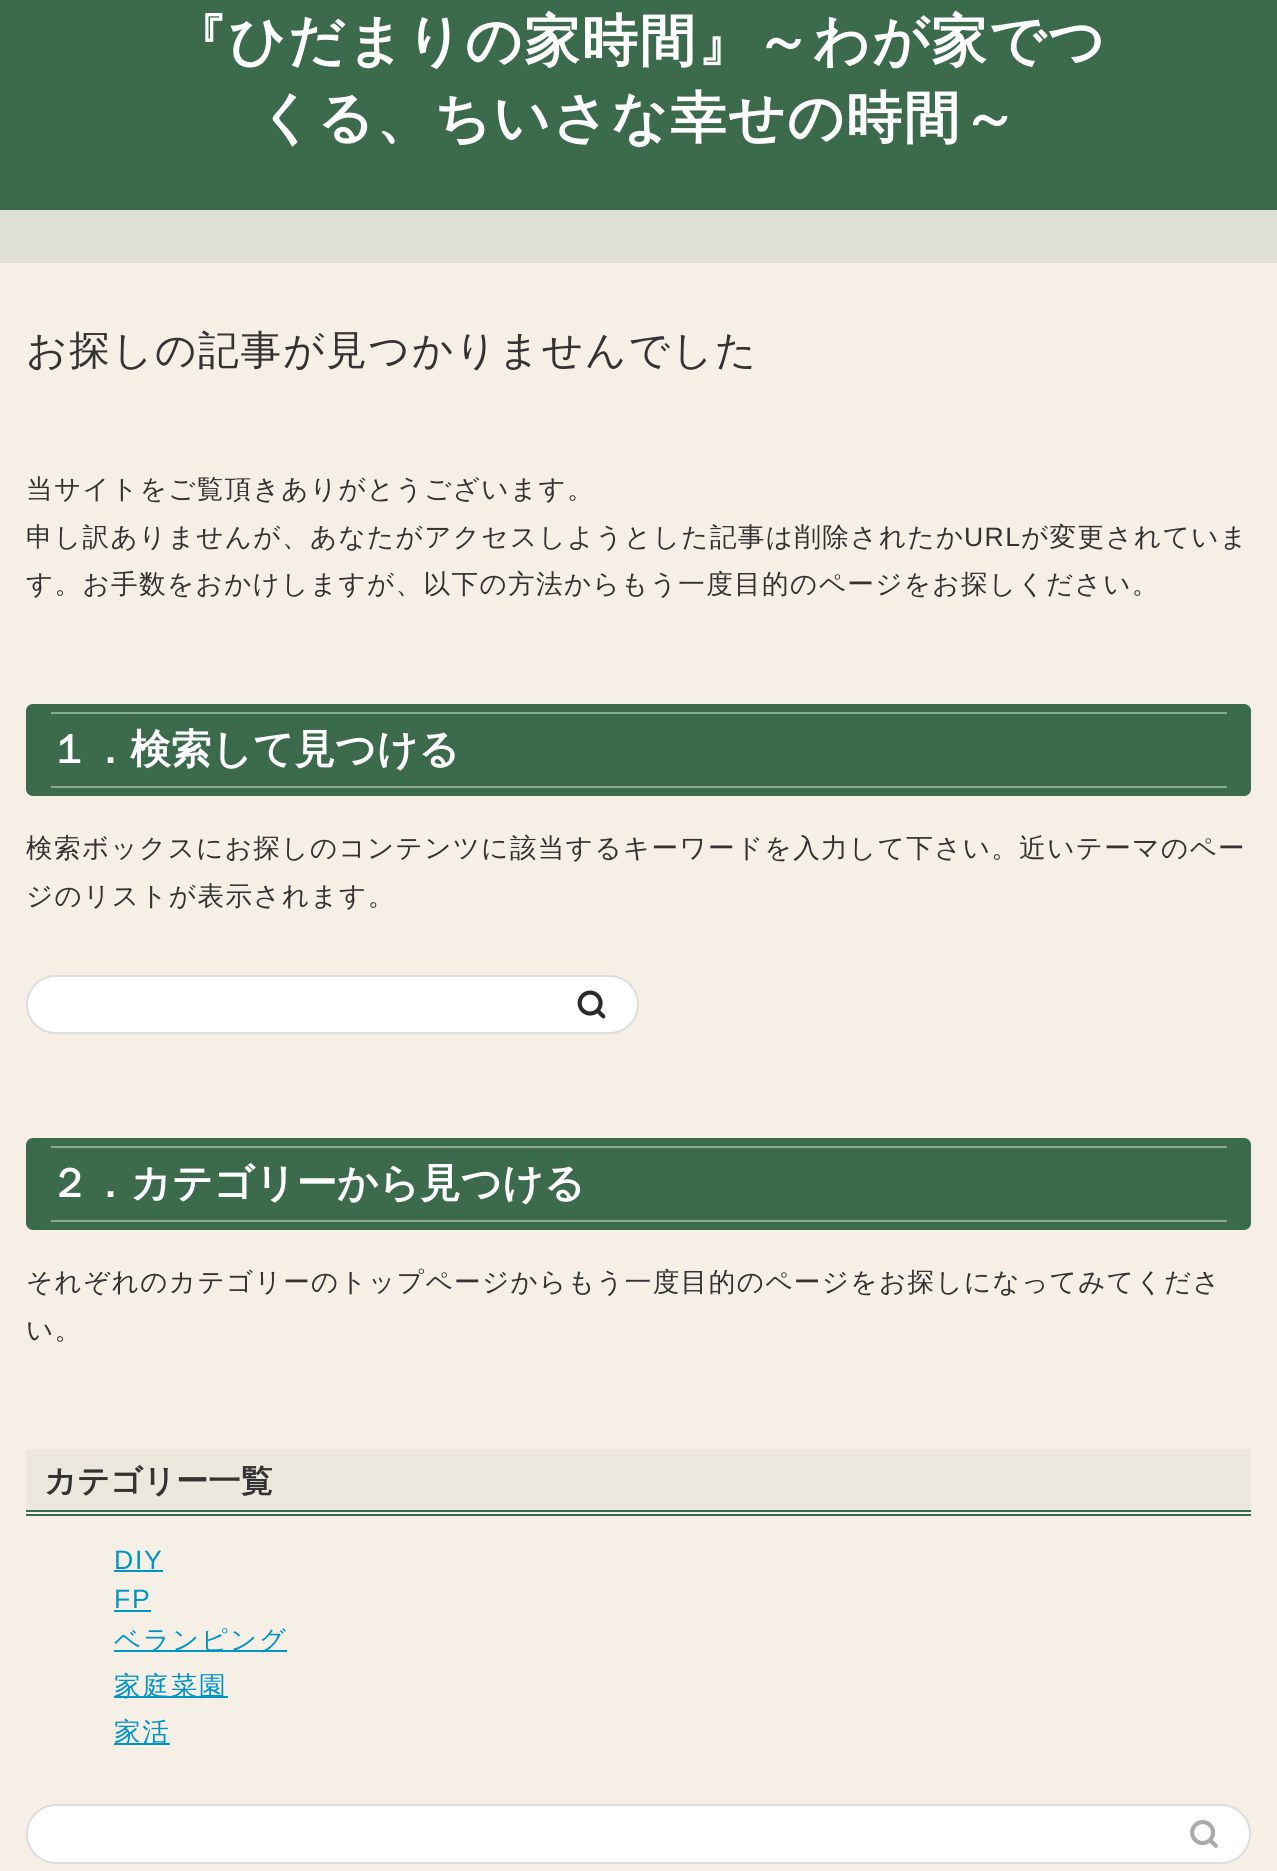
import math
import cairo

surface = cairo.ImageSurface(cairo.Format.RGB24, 1277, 1871)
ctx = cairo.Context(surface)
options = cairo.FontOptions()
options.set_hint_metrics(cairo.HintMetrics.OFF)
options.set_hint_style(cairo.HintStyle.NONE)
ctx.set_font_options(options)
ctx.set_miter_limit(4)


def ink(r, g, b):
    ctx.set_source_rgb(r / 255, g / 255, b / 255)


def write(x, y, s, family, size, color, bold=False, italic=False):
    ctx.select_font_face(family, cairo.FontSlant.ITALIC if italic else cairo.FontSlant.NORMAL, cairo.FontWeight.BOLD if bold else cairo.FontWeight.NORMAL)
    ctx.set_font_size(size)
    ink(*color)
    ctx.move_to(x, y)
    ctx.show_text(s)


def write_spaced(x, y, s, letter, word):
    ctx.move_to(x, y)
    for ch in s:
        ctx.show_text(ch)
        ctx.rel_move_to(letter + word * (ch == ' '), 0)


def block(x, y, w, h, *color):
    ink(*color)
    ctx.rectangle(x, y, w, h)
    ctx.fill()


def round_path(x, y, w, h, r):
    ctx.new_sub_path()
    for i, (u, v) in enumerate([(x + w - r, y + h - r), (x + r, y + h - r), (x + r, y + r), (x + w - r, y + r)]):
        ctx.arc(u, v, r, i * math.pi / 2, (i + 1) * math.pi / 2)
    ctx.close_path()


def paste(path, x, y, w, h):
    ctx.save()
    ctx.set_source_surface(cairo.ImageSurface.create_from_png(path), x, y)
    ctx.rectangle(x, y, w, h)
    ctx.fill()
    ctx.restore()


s1 = dict(family="WenQuanYi Zen Hei", size=40.6, color=(255, 255, 255), bold=True)
s2 = dict(family="WenQuanYi Zen Hei", size=32.25, color=(51, 51, 51), bold=True)

ink(245, 239, 230)
ctx.paint()
block(26, 1449, 1225, 61, 236, 232, 222)
block(0, 0, 1277, 210, 59, 107, 76)
ctx.select_font_face("WenQuanYi Zen Hei", cairo.FontSlant.NORMAL, cairo.FontWeight.BOLD)
ctx.set_font_size(56)
ink(255, 255, 255)
write_spaced(171, 60, "『ひだまりの家時間』～わが家でつ", 1.75, 0)
write_spaced(258, 137, "くる、ちいさな幸せの時間～", 1.75, 0)
block(0, 210, 1277, 53, 223, 223, 212)
ctx.select_font_face("WenQuanYi Zen Hei Medium")
ctx.set_font_size(40.6)
ink(51, 51, 51)
write_spaced(26, 364, "お探しの記事が見つかりませんでした", 1.75, 0)
ctx.set_font_size(26.6)
write_spaced(26, 498, "当サイトをご覧頂きありがとうございます。", 1.35, 0)
write_spaced(26, 546, "申し訳ありませんが、あなたがアクセスしようとした記事は削除されたか", 1.35, 0)
ctx.select_font_face("Liberation Sans")
write_spaced(964, 546, "URL", 1.35, 0)
ctx.select_font_face("WenQuanYi Zen Hei Medium")
write_spaced(1021, 546, "が変更されていま", 1.35, 0)
write_spaced(26, 593, "す。お手数をおかけしますが、以下の方法からもう一度目的のページをお探しください。", 1.35, 0)
ink(59, 107, 76)
round_path(26, 704, 1225, 92, 7)
ctx.fill()
block(51, 712, 1176, 2, 141, 169, 151)
write(49, 763, "１．検索して見つける", **s1)
block(51, 786, 1176, 2, 141, 169, 151)
ctx.select_font_face("WenQuanYi Zen Hei Medium")
ctx.set_font_size(26.6)
ink(51, 51, 51)
write_spaced(26, 857, "検索ボックスにお探しのコンテンツに該当するキーワードを入力して下さい。近いテーマのペー", 1.35, 0)
write_spaced(26, 905, "ジのリストが表示されます。", 1.35, 0)
ink(255, 255, 255)
round_path(27, 976, 611, 57, 28.5)
ctx.fill_preserve()
ink(221, 221, 221)
ctx.stroke()
paste("pic1.png", 577, 990, 29, 29)
ink(59, 107, 76)
round_path(26, 1138, 1225, 92, 7)
ctx.fill()
block(51, 1146, 1176, 2, 141, 169, 151)
write(49, 1197, "２．カテゴリーから見つける", **s1)
block(51, 1220, 1176, 2, 141, 169, 151)
ctx.select_font_face("WenQuanYi Zen Hei Medium")
ctx.set_font_size(26.6)
ink(51, 51, 51)
write_spaced(26, 1291, "それぞれのカテゴリーのトップページからもう一度目的のページをお探しになってみてくださ", 1.35, 0)
write_spaced(26, 1339, "い。", 1.35, 0)
block(26, 1510, 1225, 2, 59, 107, 76)
block(26, 1514, 1225, 2, 59, 107, 76)
write(44, 1492, "カテゴリー一覧", **s2)
ctx.select_font_face("Liberation Sans")
ctx.set_font_size(26.6)
ink(0, 148, 200)
write_spaced(114, 1569, "DIY", 1.75, 0)
block(114, 1570, 49, 2, 0, 148, 200)
write_spaced(114, 1608, "FP", 1.75, 0)
block(114, 1610, 37, 2, 0, 148, 200)
block(114, 1650, 173, 2, 0, 148, 200)
ctx.select_font_face("WenQuanYi Zen Hei Medium")
write_spaced(114, 1649, "ベランピング", 1.75, 0)
block(114, 1696, 114, 2, 0, 148, 200)
write_spaced(114, 1695, "家庭菜園", 1.75, 0)
block(114, 1743, 56, 2, 0, 148, 200)
write_spaced(114, 1741, "家活", 1.75, 0)
ink(255, 255, 255)
round_path(27, 1805, 1223, 58, 29)
ctx.fill_preserve()
ink(221, 221, 221)
ctx.stroke()
paste("pic2.png", 1190, 1820, 28, 28)
surface.write_to_png("screenshot.png")
